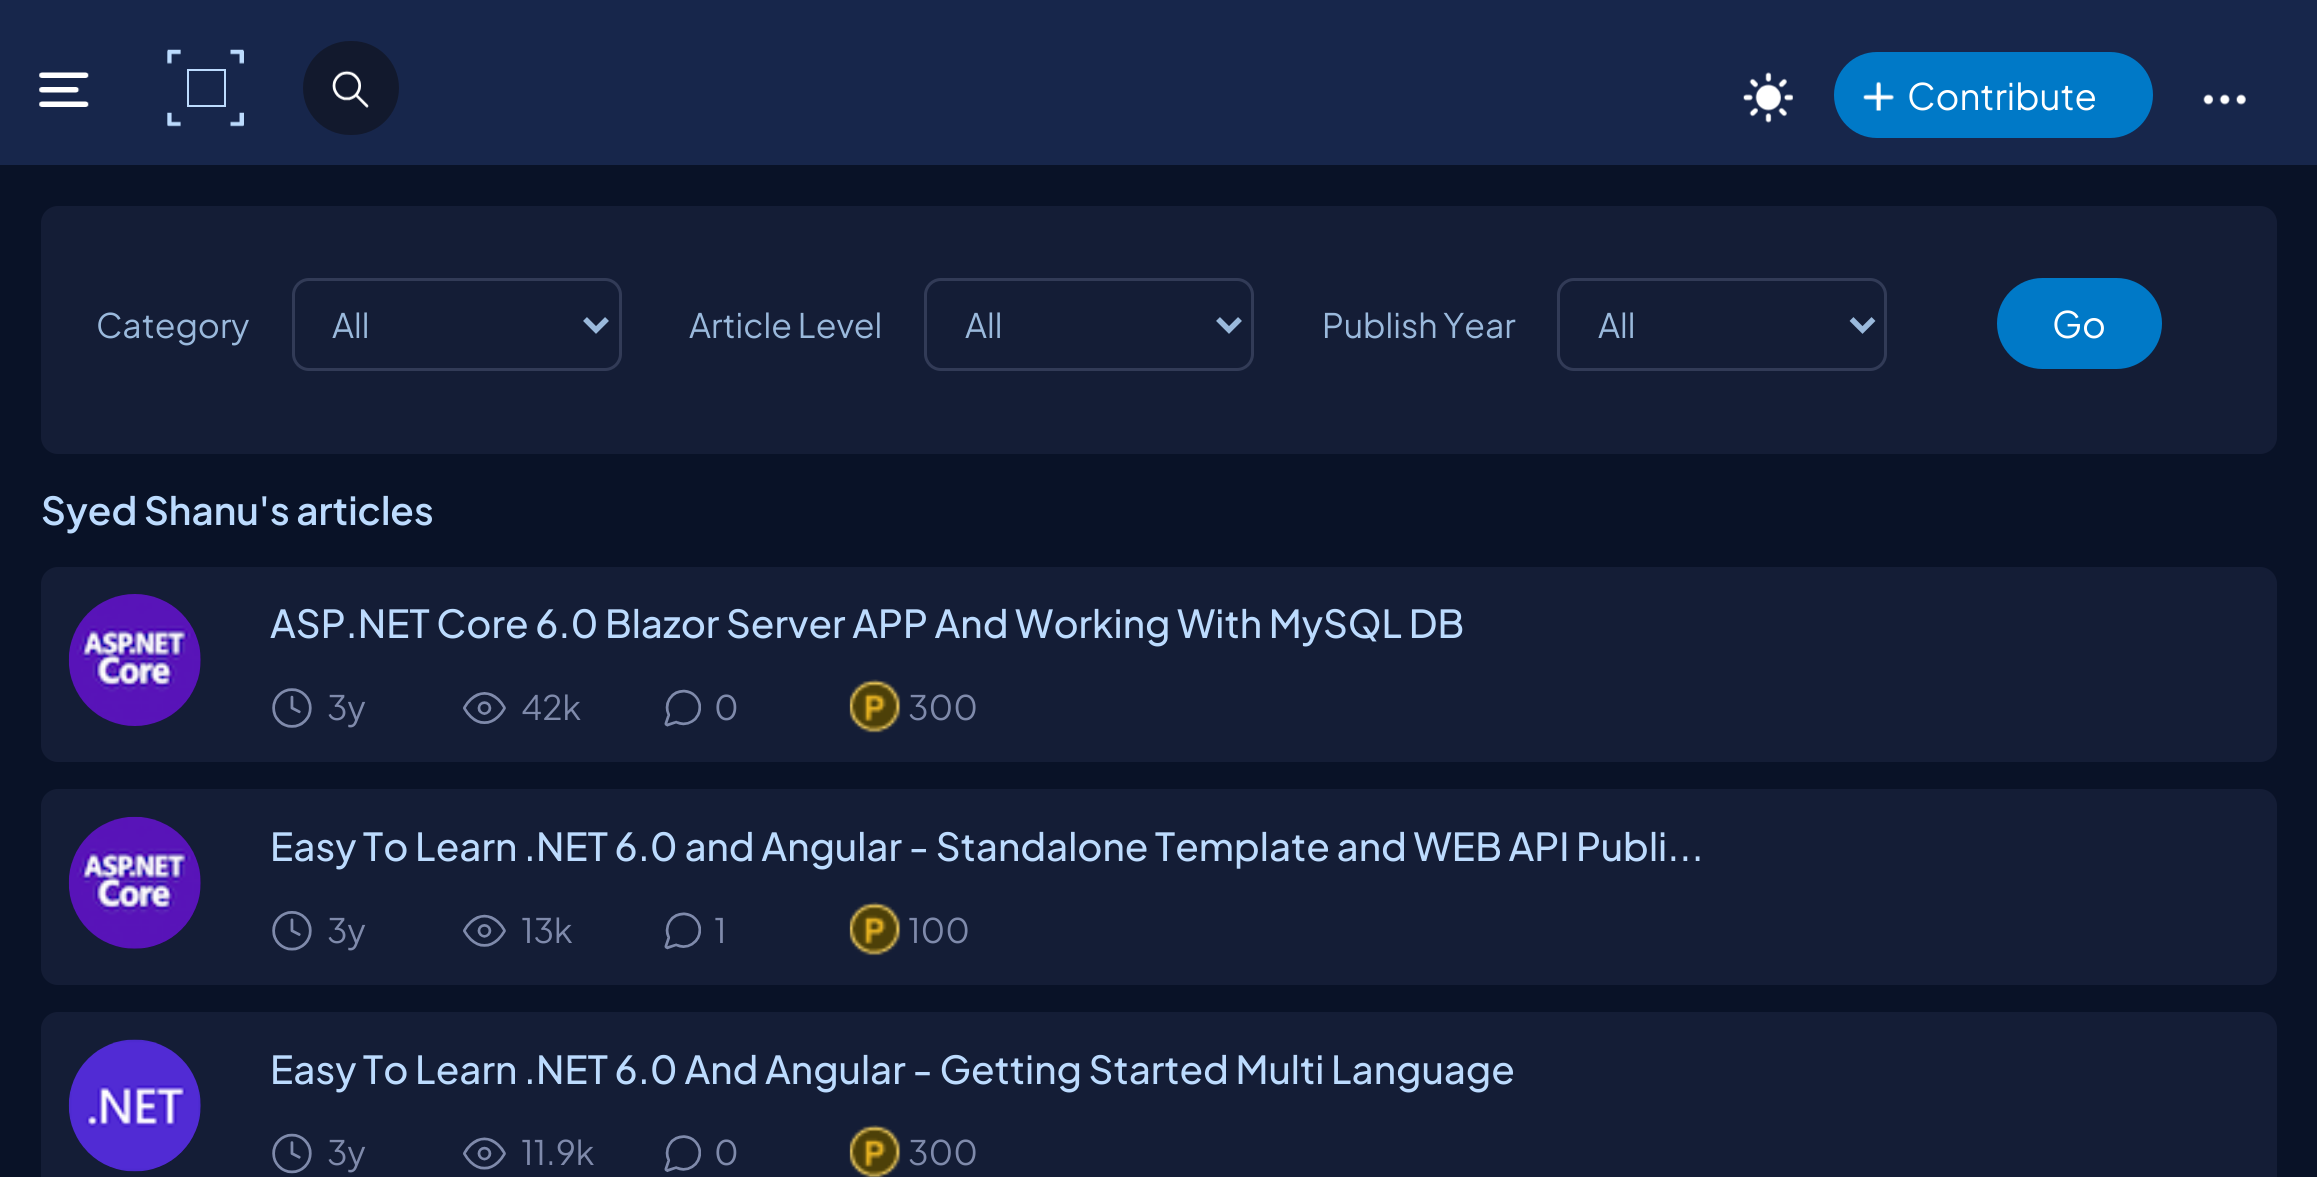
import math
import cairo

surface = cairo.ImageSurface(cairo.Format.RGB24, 2317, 1177)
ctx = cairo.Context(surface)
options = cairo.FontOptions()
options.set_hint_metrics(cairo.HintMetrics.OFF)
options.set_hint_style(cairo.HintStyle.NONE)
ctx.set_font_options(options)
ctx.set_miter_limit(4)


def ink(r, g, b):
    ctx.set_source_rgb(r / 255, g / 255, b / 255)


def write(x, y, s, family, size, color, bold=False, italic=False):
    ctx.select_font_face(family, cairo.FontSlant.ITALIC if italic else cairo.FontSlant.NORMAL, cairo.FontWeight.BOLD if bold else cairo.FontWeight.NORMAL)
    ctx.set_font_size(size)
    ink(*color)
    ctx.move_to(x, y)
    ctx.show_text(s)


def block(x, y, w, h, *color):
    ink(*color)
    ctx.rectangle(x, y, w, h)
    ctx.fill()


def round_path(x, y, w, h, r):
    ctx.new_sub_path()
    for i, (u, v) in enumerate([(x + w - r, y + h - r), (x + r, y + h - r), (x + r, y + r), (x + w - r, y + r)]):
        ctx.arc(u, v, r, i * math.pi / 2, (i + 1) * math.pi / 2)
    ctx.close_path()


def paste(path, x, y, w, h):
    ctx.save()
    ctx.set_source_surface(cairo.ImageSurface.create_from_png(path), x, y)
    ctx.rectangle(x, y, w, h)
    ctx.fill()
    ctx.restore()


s1 = dict(family="Plus Jakarta Sans", size=36.5, color=(255, 255, 255))
s2 = dict(family="Plus Jakarta Sans", size=33.75, color=(154, 185, 220))
s3 = dict(family="Plus Jakarta Sans SemiBold", size=38.5, color=(188, 219, 254))
s4 = dict(family="Plus Jakarta Sans Medium", size=38.5, color=(188, 219, 254))
s5 = dict(family="Plus Jakarta Sans", size=33.75, color=(127, 138, 171))

ink(9, 18, 39)
ctx.paint()
block(0, 0, 2317, 165, 23, 38, 75)
paste("pic1.png", 167, 49, 77, 78)
ctx.rectangle(188, 70, 37, 36)
ink(188, 219, 254)
ctx.stroke()
ink(18, 25, 45)
round_path(303, 41, 96, 94, 47)
ctx.fill()
paste("pic2.png", 332, 70, 37, 38)
paste("pic3.png", 1743, 72, 50, 51)
ink(0, 121, 199)
round_path(1834, 52, 319, 86, 43)
ctx.fill()
paste("pic4.png", 1863, 81, 31, 30)
write(1907, 110, "Contribute", **s1)
paste("pic5.png", 2203, 94, 43, 11)
paste("pic6.png", 39, 72, 50, 35)
ink(20, 29, 54)
round_path(41, 206, 2236, 248, 17)
ctx.fill()
write(96, 338, "Category", **s2)
round_path(293.5, 279.5, 327, 90, 15.5)
ink(50, 59, 87)
ctx.set_line_width(3)
ctx.stroke()
ctx.new_path()
ctx.move_to(585, 319)
ctx.line_to(596, 330)
ctx.line_to(607, 319)
ink(154, 185, 220)
ctx.set_line_width(5.5)
ctx.stroke()
write(332, 338, "All", **s2)
write(689, 338, "Article Level", **s2)
round_path(925.5, 279.5, 327, 90, 15.5)
ink(50, 59, 87)
ctx.set_line_width(3)
ctx.stroke()
ctx.new_path()
ctx.move_to(1218, 319)
ctx.line_to(1229, 330)
ctx.line_to(1240, 319)
ink(154, 185, 220)
ctx.set_line_width(5.5)
ctx.stroke()
write(965, 338, "All", **s2)
write(1322, 338, "Publish Year", **s2)
round_path(1558.5, 279.5, 327, 90, 15.5)
ink(50, 59, 87)
ctx.set_line_width(3)
ctx.stroke()
ctx.new_path()
ctx.move_to(1851.5, 319)
ctx.line_to(1862.5, 330)
ctx.line_to(1873.5, 319)
ink(154, 185, 220)
ctx.set_line_width(5.5)
ctx.stroke()
write(1598, 338, "All", **s2)
ink(0, 121, 199)
round_path(1997, 278, 165, 91, 45.5)
ctx.fill()
write(2052, 338, "Go", **s1)
write(41, 525, "Syed Shanu's articles", **s3)
ink(20, 29, 54)
round_path(41, 567, 2236, 195, 17)
ctx.fill()
ink(18, 25, 45)
ctx.arc(135, 660, 66, 0, 2 * math.pi)
ctx.fill()
paste("pic7.png", 68, 594, 133, 132)
write(270, 638, "ASP.NET Core 6.0 Blazor Server APP And Working With MySQL DB", **s4)
paste("pic8.png", 272, 688, 40, 40)
write(327, 720, "3y", **s5)
paste("pic9.png", 463, 692, 43, 32)
write(521, 720, "42k", **s5)
paste("pic10.png", 664, 689, 37, 38)
write(714, 720, "0", **s5)
paste("pic11.png", 849, 679, 52, 54)
write(908, 720, "300", **s5)
ink(20, 29, 54)
round_path(41, 789, 2236, 196, 17)
ctx.fill()
ink(18, 25, 45)
ctx.arc(135, 883, 66, 0, 2 * math.pi)
ctx.fill()
paste("pic12.png", 68, 816, 133, 133)
write(270, 861, "Easy To Learn .NET 6.0 and Angular - Standalone Template and WEB API Publi...", **s4)
paste("pic13.png", 272, 911, 40, 40)
write(327, 943, "3y", **s5)
paste("pic14.png", 463, 914, 43, 33)
write(521, 943, "13k", **s5)
paste("pic15.png", 664, 912, 37, 38)
write(714, 943, "1", **s5)
paste("pic16.png", 849, 902, 52, 54)
write(908, 943, "100", **s5)
ink(20, 29, 54)
round_path(41, 1012, 2236, 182, 17)
ctx.fill()
ink(18, 25, 45)
ctx.arc(135, 1106, 66, 0, 2 * math.pi)
ctx.fill()
paste("pic17.png", 68, 1039, 133, 133)
write(270, 1084, "Easy To Learn .NET 6.0 And Angular - Getting Started Multi Language", **s4)
paste("pic18.png", 272, 1133, 40, 41)
write(327, 1165, "3y", **s5)
paste("pic19.png", 463, 1137, 43, 33)
write(521, 1165, "11.9k", **s5)
paste("pic20.png", 664, 1135, 37, 37)
write(714, 1165, "0", **s5)
paste("pic21.png", 849, 1125, 52, 52)
write(908, 1165, "300", **s5)
surface.write_to_png("screenshot.png")
